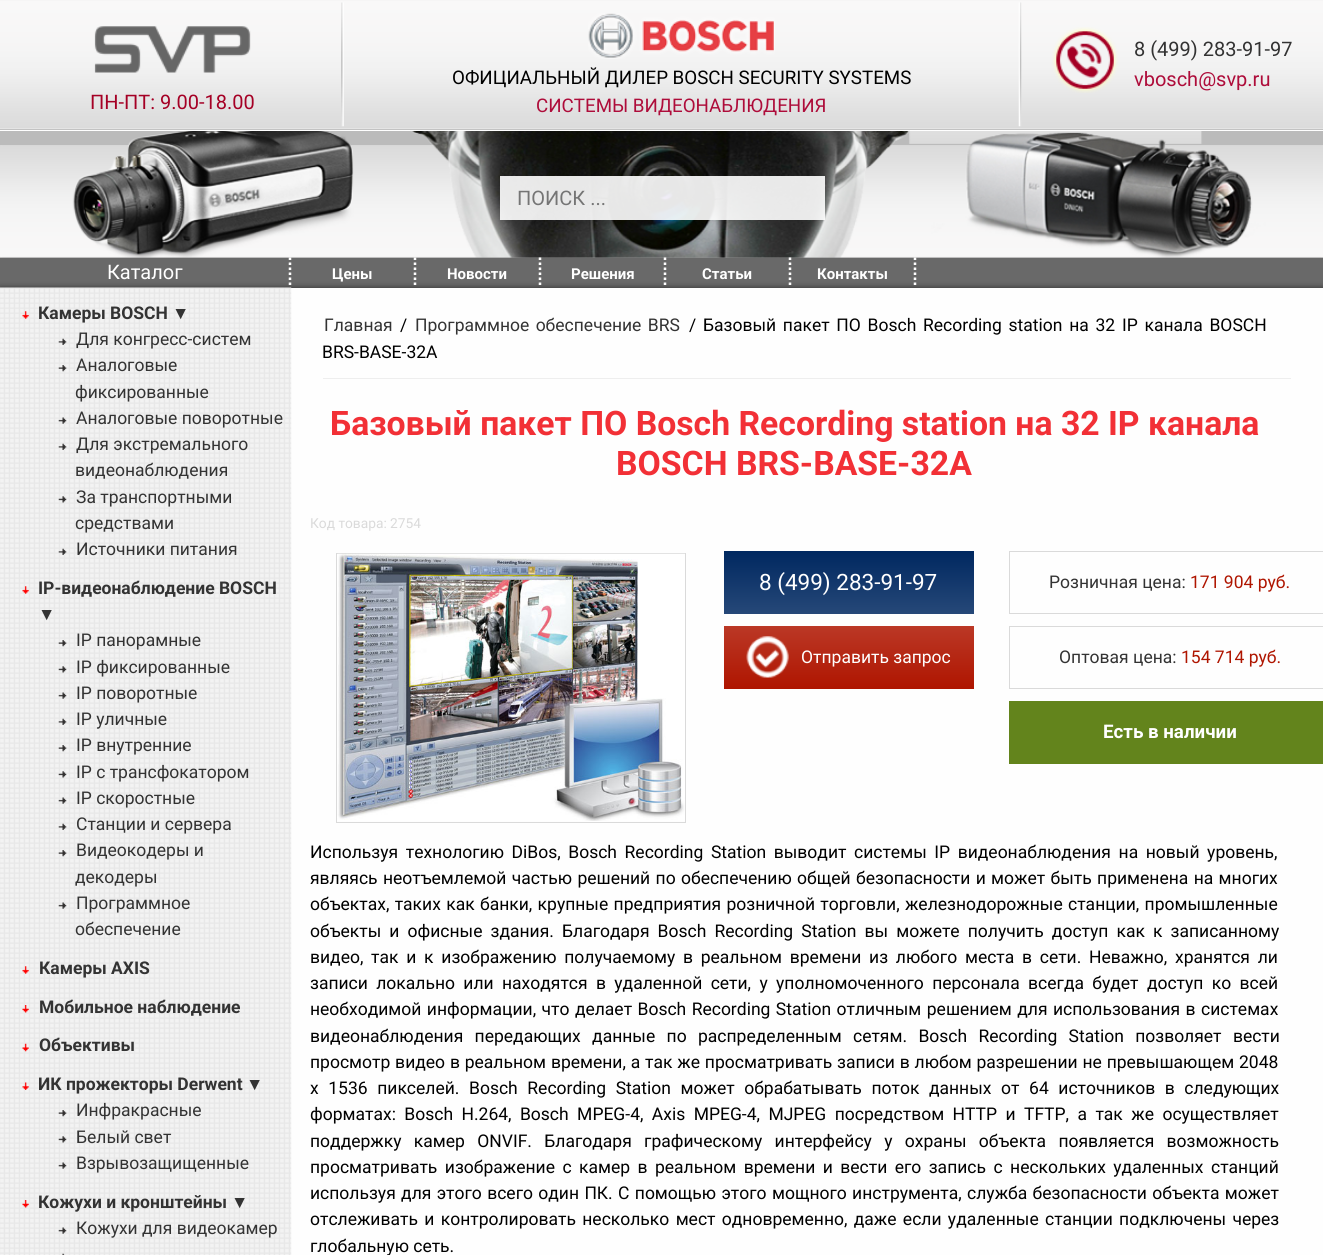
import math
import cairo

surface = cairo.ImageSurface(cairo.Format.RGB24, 1323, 1255)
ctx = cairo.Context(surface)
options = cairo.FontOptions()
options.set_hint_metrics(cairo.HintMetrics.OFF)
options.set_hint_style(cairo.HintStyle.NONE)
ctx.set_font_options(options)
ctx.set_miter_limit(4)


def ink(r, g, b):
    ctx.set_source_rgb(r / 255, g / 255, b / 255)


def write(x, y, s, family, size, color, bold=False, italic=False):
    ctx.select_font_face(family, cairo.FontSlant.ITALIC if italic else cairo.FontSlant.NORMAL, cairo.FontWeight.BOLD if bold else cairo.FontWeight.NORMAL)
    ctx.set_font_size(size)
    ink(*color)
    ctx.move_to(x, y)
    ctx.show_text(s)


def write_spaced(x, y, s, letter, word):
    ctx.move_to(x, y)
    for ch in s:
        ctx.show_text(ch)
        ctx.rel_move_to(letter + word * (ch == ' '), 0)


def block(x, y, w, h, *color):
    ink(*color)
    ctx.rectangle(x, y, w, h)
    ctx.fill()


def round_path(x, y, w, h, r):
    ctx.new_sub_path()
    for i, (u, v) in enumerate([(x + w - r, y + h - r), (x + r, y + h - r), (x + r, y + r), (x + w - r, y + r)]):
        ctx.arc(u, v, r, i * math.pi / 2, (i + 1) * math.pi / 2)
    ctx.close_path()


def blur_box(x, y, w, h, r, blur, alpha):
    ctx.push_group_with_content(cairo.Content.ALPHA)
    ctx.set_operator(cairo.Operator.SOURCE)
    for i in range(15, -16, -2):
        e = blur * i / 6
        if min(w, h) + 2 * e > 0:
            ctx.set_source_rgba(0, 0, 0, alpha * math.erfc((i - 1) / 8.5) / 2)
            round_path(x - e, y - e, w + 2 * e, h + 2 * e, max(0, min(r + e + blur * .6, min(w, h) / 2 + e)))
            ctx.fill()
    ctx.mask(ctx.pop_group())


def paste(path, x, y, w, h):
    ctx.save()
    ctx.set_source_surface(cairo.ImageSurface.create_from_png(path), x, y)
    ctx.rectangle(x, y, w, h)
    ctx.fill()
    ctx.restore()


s1 = dict(family="Roboto", size=20, color=(165, 0, 37))
s2 = dict(family="Roboto", size=18.75, color=(0, 0, 0))
s3 = dict(family="Roboto", size=18.75, color=(174, 12, 58))
s4 = dict(family="Roboto", size=20, color=(51, 51, 51))
s5 = dict(family="Roboto", size=20, color=(174, 12, 58))
s6 = dict(family="Roboto", size=20, color=(117, 117, 117))
s7 = dict(family="Roboto", size=20, color=(255, 255, 255))
s8 = dict(family="Roboto", size=15, color=(255, 255, 255), bold=True)
s9 = dict(family="Roboto", size=17.5, color=(51, 51, 51), bold=True)
s10 = dict(family="Liberation Sans", size=17.5, color=(51, 51, 51), bold=True)
s11 = dict(family="Roboto", size=17.5, color=(51, 51, 51))
s12 = dict(family="Roboto", size=17.5, color=(0, 0, 0))
s13 = dict(family="Roboto", size=33.75, color=(242, 48, 54), bold=True)
s14 = dict(family="Roboto", size=13.75, color=(218, 218, 218))
s15 = dict(family="Roboto", size=22.5, color=(255, 255, 255))
s16 = dict(family="Roboto", size=17.5, color=(255, 255, 255))
s17 = dict(family="Roboto", size=17.5, color=(175, 21, 0))
s18 = dict(family="Roboto", size=18.75, color=(255, 255, 255), bold=True)

ink(187, 187, 187)
ctx.paint()
ctx.save()
ctx.set_fill_rule(cairo.FillRule.EVEN_ODD)
ctx.new_path()
ctx.move_to(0, 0)
ctx.line_to(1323, 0)
ctx.line_to(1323, 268)
ctx.line_to(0, 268)
ctx.close_path()
ctx.move_to(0, 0)
ctx.line_to(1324, 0)
ctx.line_to(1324, 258)
ctx.line_to(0, 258)
ctx.close_path()
ctx.clip()
ink(0, 0, 0)
blur_box(0, 0, 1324, 258, 0, 3, 0.6)
ctx.restore()
paste("pic1.png", 0, 0, 1323, 129)
block(0, 129, 1323, 1, 194, 194, 194)
paste("pic2.png", 341, 2, 3, 125)
paste("pic3.png", 94, 26, 157, 47)
write(90, 109, "ПН-ПТ: 9.00-18.00", **s1)
paste("pic4.png", 588, 13, 187, 46)
write(452, 84, "ОФИЦИАЛЬНЫЙ ДИЛЕР BOSCH SECURITY SYSTEMS", **s2)
write(536, 112, "СИСТЕМЫ ВИДЕОНАБЛЮДЕНИЯ", **s3)
paste("pic5.png", 1018, 2, 4, 125)
paste("pic6.png", 1052, 27, 66, 66)
write(1134, 56, "8 (499) 283-91-97", **s4)
write(1134, 86, "vbosch@svp.ru", **s5)
ink(0, 0, 0)
blur_box(0, 258, 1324, 30, 0, 3, 0.6)
paste("pic7.png", 0, 131, 1323, 127)
block(0, 130, 1323, 1, 255, 255, 255)
ctx.set_source_rgba(1, 1, 1, 0.9)
ctx.rectangle(500, 176, 325, 44)
ctx.fill()
write(517, 205, "ПОИСК ...", **s6)
block(0, 258, 1323, 30, 105, 105, 105)
ink(0, 0, 0)
blur_box(0, 288, 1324, 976, 0, 3, 0.6)
ctx.new_path()
ctx.move_to(290, 257.5)
ctx.line_to(290, 287.5)
ink(255, 255, 255)
ctx.set_line_width(2.5)
ctx.set_dash([2.5, 2.5])
ctx.stroke()
write(107, 279, "Каталог", **s7)
ctx.new_path()
ctx.move_to(415, 257.5)
ctx.line_to(415, 287.5)
ctx.stroke()
write(332, 279, "Цены", **s8)
ctx.new_path()
ctx.move_to(540, 257.5)
ctx.line_to(540, 287.5)
ctx.stroke()
write(447, 279, "Новости", **s8)
ctx.new_path()
ctx.move_to(665, 257.5)
ctx.line_to(665, 287.5)
ctx.stroke()
write(571, 279, "Решения", **s8)
ctx.new_path()
ctx.move_to(790, 257.5)
ctx.line_to(790, 287.5)
ctx.stroke()
write(702, 279, "Статьи", **s8)
ctx.new_path()
ctx.move_to(915, 257.5)
ctx.line_to(915, 287.5)
ctx.stroke()
write(817, 279, "Контакты", **s8)
block(291, 288, 1032, 967, 254, 254, 254)
paste("pic8.png", 0, 287, 292, 968)
paste("pic9.png", 22, 311, 7, 8)
write(38, 319, "Камеры BOSCH", **s9)
write(172, 319, "▼", **s10)
paste("pic10.png", 58, 338, 9, 7)
write(76, 345, "Для конгресс-систем", **s11)
paste("pic11.png", 58, 365, 9, 7)
write(76, 371, "Аналоговые", **s11)
write(75, 398, "фиксированные", **s11)
paste("pic12.png", 58, 417, 9, 7)
write(76, 424, "Аналоговые поворотные", **s11)
paste("pic10.png", 58, 443, 9, 7)
write(76, 450, "Для экстремального", **s11)
write(75, 476, "видеонаблюдения", **s11)
paste("pic13.png", 58, 496, 9, 7)
write(76, 503, "За транспортными", **s11)
write(75, 529, "средствами", **s11)
paste("pic10.png", 58, 548, 9, 7)
write(76, 555, "Источники питания", **s11)
paste("pic14.png", 22, 586, 7, 8)
write(38, 594, "IP-видеонаблюдение BOSCH", **s9)
write(38, 620, "▼", **s10)
paste("pic11.png", 58, 640, 9, 7)
write(76, 646, "IP панорамные", **s11)
paste("pic13.png", 58, 666, 9, 7)
write(76, 673, "IP фиксированные", **s11)
paste("pic12.png", 58, 692, 9, 7)
write(76, 699, "IP поворотные", **s11)
paste("pic10.png", 58, 718, 9, 7)
write(76, 725, "IP уличные", **s11)
paste("pic11.png", 58, 745, 9, 7)
write(76, 751, "IP внутренние", **s11)
paste("pic13.png", 58, 771, 9, 7)
write(76, 778, "IP с трансфокатором", **s11)
paste("pic12.png", 58, 797, 9, 7)
write(76, 804, "IP скоростные", **s11)
paste("pic10.png", 58, 823, 9, 7)
write(76, 830, "Станции и сервера", **s11)
paste("pic11.png", 58, 850, 9, 7)
write(76, 856, "Видеокодеры и", **s11)
write(75, 883, "декодеры", **s11)
paste("pic12.png", 58, 902, 9, 7)
write(76, 909, "Программное", **s11)
write(75, 935, "обеспечение", **s11)
paste("pic15.png", 22, 966, 7, 8)
write(39, 974, "Камеры AXIS", **s9)
paste("pic16.png", 22, 1005, 7, 8)
write(39, 1013, "Мобильное наблюдение", **s9)
paste("pic17.png", 22, 1043, 7, 9)
write(39, 1051, "Объективы", **s9)
paste("pic18.png", 22, 1082, 7, 8)
write(38, 1090, "ИК прожекторы Derwent", **s9)
write(246, 1090, "▼", **s10)
paste("pic11.png", 58, 1110, 9, 7)
write(76, 1116, "Инфракрасные", **s11)
paste("pic13.png", 58, 1136, 9, 7)
write(76, 1143, "Белый свет", **s11)
paste("pic12.png", 58, 1162, 9, 7)
write(76, 1169, "Взрывозащищенные", **s11)
paste("pic16.png", 22, 1200, 7, 8)
write(38, 1208, "Кожухи и кронштейны", **s9)
write(231, 1208, "▼", **s10)
paste("pic12.png", 58, 1227, 9, 7)
write(76, 1234, "Кожухи для видеокамер", **s11)
paste("pic19.png", 62, 1253, 3, 2)
write(324, 331, "Главная", **s11)
write(400, 331, "/", **s12)
ink(51, 51, 51)
write_spaced(415, 331, "Программное обеспечение BRS", 0, 2)
ink(0, 0, 0)
write_spaced(689, 331, "/ Базовый пакет ПО Bosch Recording station на 32 IP канала BOSCH", 0, 2.4)
write(322, 358, "BRS-BASE-32A", **s12)
block(323, 378, 968, 1, 238, 238, 238)
write(330, 435, "Базовый пакет ПО Bosch Recording station на 32 IP канала", **s13)
write(616, 475, "BOSCH BRS-BASE-32A", **s13)
write(310, 528, "Код товара: 2754", **s14)
ctx.rectangle(336.5, 553.5, 349, 269)
ctx.set_line_width(1)
ctx.set_dash([])
ctx.stroke()
paste("pic20.png", 337, 553, 348, 268)
gradient = cairo.LinearGradient(849, 551, 849, 614)
gradient.add_color_stop_rgba(0, 0, 0.157, 0.376, 1)
gradient.add_color_stop_rgba(1, 0.149, 0.282, 0.471, 1)
ctx.set_source(gradient)
ctx.rectangle(724, 551, 250, 63)
ctx.fill()
write(759, 590, "8 (499) 283-91-97", **s15)
gradient = cairo.LinearGradient(849, 626, 849, 689)
gradient.add_color_stop_rgba(0, 0.733, 0.22, 0.149, 1)
gradient.add_color_stop_rgba(1, 0.686, 0.082, 0, 1)
ctx.set_source(gradient)
ctx.rectangle(724, 626, 250, 63)
ctx.fill()
paste("pic21.png", 746, 636, 43, 42)
write(801, 663, "Отправить запрос", **s16)
ctx.rectangle(1009.5, 551.5, 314, 62)
ink(218, 218, 218)
ctx.stroke()
write(1049, 588, "Розничная цена:", **s11)
write(1190, 588, "171 904 руб.", **s17)
ctx.rectangle(1009.5, 626.5, 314, 62)
ink(218, 218, 218)
ctx.stroke()
write(1059, 663, "Оптовая цена:", **s11)
write(1181, 663, "154 714 руб.", **s17)
block(1009, 701, 314, 63, 99, 132, 28)
write(1103, 738, "Есть в наличии", **s18)
ctx.select_font_face("Roboto")
ctx.set_font_size(17.5)
ink(0, 0, 0)
write_spaced(310, 858, "Используя технологию DiBos, Bosch Recording Station выводит системы IP видеонаблюдения на новый уровень,", 0, 3.25)
write_spaced(310, 884, "являясь неотъемлемой частью решений по обеспечению общей безопасности и может быть применена на многих", 0, 1)
write_spaced(310, 910, "объектах, таких как банки, крупные предприятия розничной торговли, железнодорожные станции, промышленные", 0, 1)
write_spaced(310, 937, "объекты и офисные здания. Благодаря Bosch Recording Station вы можете получить доступ как к записанному", 0, 3.75)
write_spaced(310, 963, "видео, так и к изображению получаемому в реальном времени из любого места в сети. Неважно, хранятся ли", 0, 3.4)
write_spaced(310, 989, "записи локально или находятся в удаленной сети, у уполномоченного персонала всегда будет доступ ко всей", 0, 4)
write_spaced(310, 1015, "необходимой информации, что делает Bosch Recording Station отличным решением для использования в системах", 0, 1.1)
write_spaced(310, 1042, "видеонаблюдения передающих данные по распределенным сетям. Bosch Recording Station позволяет вести", 0, 7)
write_spaced(310, 1068, "просмотр видео в реальном времени, а так же просматривать записи в любом разрешении не превышающем 2048", 0, 0.5)
write_spaced(310, 1094, "х 1536 пикселей. Bosch Recording Station может обрабатывать поток данных от 64 источников в следующих", 0, 5.25)
write_spaced(310, 1120, "форматах: Bosch H.264, Bosch MPEG-4, Axis MPEG-4, MJPEG посредством HTTP и TFTP, а так же осуществляет", 0, 4.1)
write_spaced(310, 1147, "поддержку камер ONVIF. Благодаря графическому интерфейсу у охраны объекта появляется возможность", 0, 8)
write_spaced(310, 1173, "просматривать изображение с камер в реальном времени и вести его запись с нескольких удаленных станций", 0, 3.1)
write_spaced(310, 1199, "используя для этого всего один ПК. С помощью этого мощного инструмента, служба безопасности объекта может", 0, 1)
write_spaced(310, 1225, "отслеживать и контролировать несколько мест одновременно, даже если удаленные станции подключены через", 0, 2)
write(310, 1252, "глобальную сеть.", **s12)
surface.write_to_png("screenshot.png")
